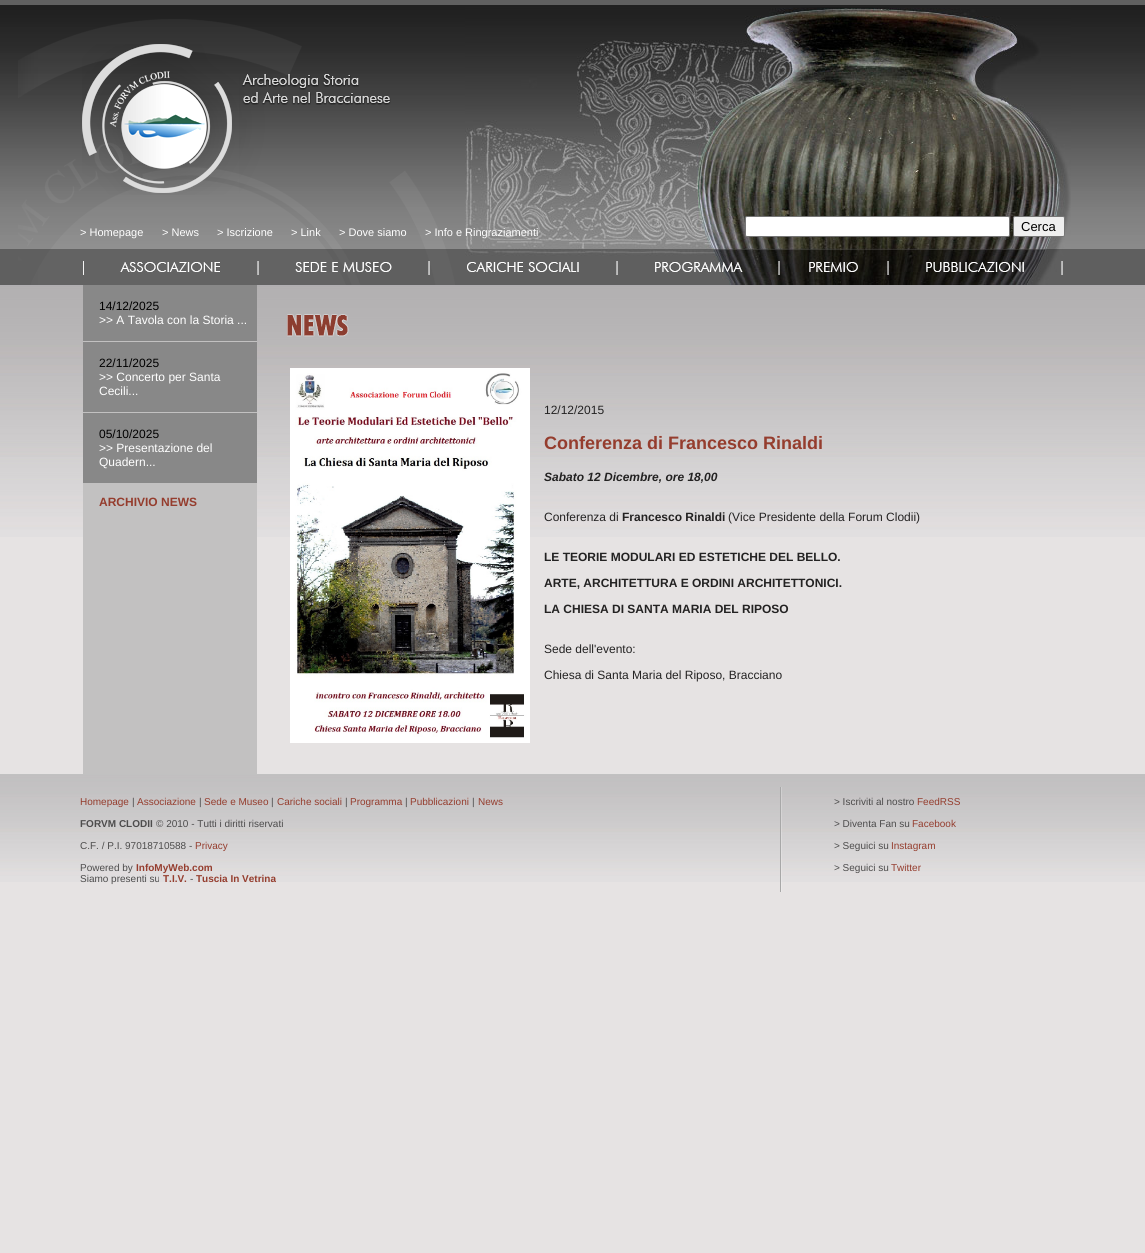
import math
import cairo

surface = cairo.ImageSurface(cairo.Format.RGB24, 1145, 1253)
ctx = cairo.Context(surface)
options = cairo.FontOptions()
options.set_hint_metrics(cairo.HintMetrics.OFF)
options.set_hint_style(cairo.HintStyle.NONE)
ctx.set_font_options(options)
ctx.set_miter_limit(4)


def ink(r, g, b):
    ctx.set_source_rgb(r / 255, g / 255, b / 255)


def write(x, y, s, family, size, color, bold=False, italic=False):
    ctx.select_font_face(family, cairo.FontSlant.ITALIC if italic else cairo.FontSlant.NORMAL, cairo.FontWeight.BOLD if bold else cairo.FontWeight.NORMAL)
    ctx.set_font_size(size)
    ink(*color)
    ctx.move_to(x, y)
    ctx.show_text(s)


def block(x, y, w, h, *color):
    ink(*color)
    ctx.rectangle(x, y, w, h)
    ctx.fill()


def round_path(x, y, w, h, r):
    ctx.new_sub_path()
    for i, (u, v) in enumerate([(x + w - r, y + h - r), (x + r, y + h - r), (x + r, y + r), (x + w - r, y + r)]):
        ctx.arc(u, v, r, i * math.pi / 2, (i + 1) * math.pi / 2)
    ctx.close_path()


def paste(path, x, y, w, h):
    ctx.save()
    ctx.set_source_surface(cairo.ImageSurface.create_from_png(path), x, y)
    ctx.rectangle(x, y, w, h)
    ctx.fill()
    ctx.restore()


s1 = dict(family="Liberation Sans", size=13, color=(0, 0, 0))
s2 = dict(family="Liberation Sans", size=11, color=(255, 255, 255))
s3 = dict(family="Liberation Sans", size=12, color=(0, 0, 0))
s4 = dict(family="Liberation Sans", size=12, color=(255, 255, 255))
s5 = dict(family="Liberation Sans", size=12, color=(149, 61, 46), bold=True)
s6 = dict(family="Liberation Sans", size=12, color=(35, 34, 34))
s7 = dict(family="Liberation Sans", size=18, color=(149, 61, 46), bold=True)
s8 = dict(family="Liberation Sans", size=12, color=(35, 34, 34), bold=True, italic=True)
s9 = dict(family="Liberation Sans", size=12, color=(35, 34, 34), bold=True)
s10 = dict(family="Liberation Sans", size=10, color=(149, 61, 46))
s11 = dict(family="Liberation Sans", size=10, color=(77, 76, 76))
s12 = dict(family="Liberation Sans", size=10, color=(77, 76, 76), bold=True)
s13 = dict(family="Liberation Sans", size=10, color=(149, 61, 46), bold=True)

ink(230, 227, 227)
ctx.paint()
paste("pic1.png", 0, 0, 1145, 285)
paste("pic2.png", 465, 7, 606, 278)
paste("pic3.png", 18, 19, 437, 266)
ink(255, 255, 255)
round_path(745.5, 216.5, 264, 20, 1.5)
ctx.fill_preserve()
ink(118, 118, 118)
ctx.set_line_width(1)
ctx.stroke()
ink(239, 239, 239)
round_path(1013.5, 216.5, 51, 20, 1.5)
ctx.fill_preserve()
ink(118, 118, 118)
ctx.stroke()
write(1021, 231, "Cerca", **s1)
paste("pic4.png", 82, 44, 309, 151)
write(80, 236, "> Homepage", **s2)
write(162, 236, "> News", **s2)
write(217, 236, "> Iscrizione", **s2)
write(291, 236, "> Link", **s2)
write(339, 236, "> Dove siamo", **s2)
write(425, 236, "> Info e Ringraziamenti", **s2)
ctx.set_source_rgba(0, 0, 0, 0.32)
ctx.rectangle(0, 249, 1145, 36)
ctx.fill()
block(83, 261, 1, 14, 244, 244, 244)
paste("pic5.png", 120, 262, 100, 10)
paste("pic6.png", 257, 261, 2, 14)
paste("pic7.png", 295, 262, 97, 10)
paste("pic8.png", 428, 261, 2, 14)
paste("pic9.png", 467, 262, 112, 10)
paste("pic8.png", 616, 261, 2, 14)
paste("pic10.png", 655, 262, 88, 10)
paste("pic11.png", 778, 261, 2, 14)
paste("pic12.png", 809, 262, 49, 10)
paste("pic13.png", 887, 261, 2, 14)
paste("pic14.png", 926, 262, 98, 10)
paste("pic8.png", 1061, 261, 2, 14)
paste("pic15.png", 0, 285, 1145, 252)
block(83, 341, 174, 433, 194, 193, 193)
block(83, 285, 174, 56, 136, 136, 136)
write(99, 310, "14/12/2025", **s3)
write(99, 324, ">> A Tavola con la Storia ...", **s4)
block(83, 342, 174, 70, 136, 136, 136)
write(99, 367, "22/11/2025", **s3)
write(99, 381, ">> Concerto per Santa", **s4)
write(99, 395, "Cecili...", **s4)
block(83, 413, 174, 70, 136, 136, 136)
write(99, 438, "05/10/2025", **s3)
write(99, 452, ">> Presentazione del", **s4)
write(99, 466, "Quadern...", **s4)
write(99, 506, "ARCHIVIO NEWS", **s5)
paste("pic16.png", 287, 314, 62, 23)
paste("pic17.png", 290, 368, 240, 375)
write(544, 414, "12/12/2015", **s6)
write(544, 449, "Conferenza di Francesco Rinaldi", **s7)
write(544, 481, "Sabato 12 Dicembre, ore 18,00", **s8)
write(544, 521, "Conferenza di", **s6)
write(622, 521, "Francesco Rinaldi", **s9)
write(728, 521, "(Vice Presidente della Forum Clodii)", **s6)
write(544, 561, "LE TEORIE MODULARI ED ESTETICHE DEL BELLO.", **s9)
write(544, 587, "ARTE, ARCHITETTURA E ORDINI ARCHITETTONICI.", **s9)
write(544, 613, "LA CHIESA DI SANTA MARIA DEL RIPOSO", **s9)
write(544, 653, "Sede dell'evento:", **s6)
write(544, 679, "Chiesa di Santa Maria del Riposo, Bracciano", **s6)
paste("pic18.png", 0, 774, 1145, 108)
write(80, 805, "Homepage", **s10)
write(132, 805, "|", **s11)
write(137, 805, "Associazione", **s10)
write(199, 805, "|", **s11)
write(204, 805, "Sede e Museo", **s10)
write(271, 805, "|", **s11)
write(277, 805, "Cariche sociali", **s10)
write(345, 805, "|", **s11)
write(350, 805, "Programma", **s10)
write(405, 805, "|", **s11)
write(410, 805, "Pubblicazioni", **s10)
write(472, 805, "|", **s11)
write(478, 805, "News", **s10)
write(80, 827, "FORVM CLODII", **s12)
write(156, 827, "© 2010 - Tutti i diritti riservati", **s11)
write(80, 849, "C.F. / P.I. 97018710588 -", **s11)
write(195, 849, "Privacy", **s10)
write(80, 871, "Powered by", **s11)
write(136, 871, "InfoMyWeb.com", **s13)
write(80, 882, "Siamo presenti su", **s11)
write(163, 882, "T.I.V.", **s13)
write(190, 882, "-", **s11)
write(196, 882, "Tuscia In Vetrina", **s13)
paste("pic19.png", 780, 787, 2, 105)
write(834, 805, "> Iscriviti al nostro", **s11)
write(917, 805, "FeedRSS", **s10)
write(834, 827, "> Diventa Fan su", **s11)
write(912, 827, "Facebook", **s10)
write(834, 849, "> Seguici su", **s11)
write(891, 849, "Instagram", **s10)
write(834, 871, "> Seguici su", **s11)
write(891, 871, "Twitter", **s10)
surface.write_to_png("screenshot.png")
